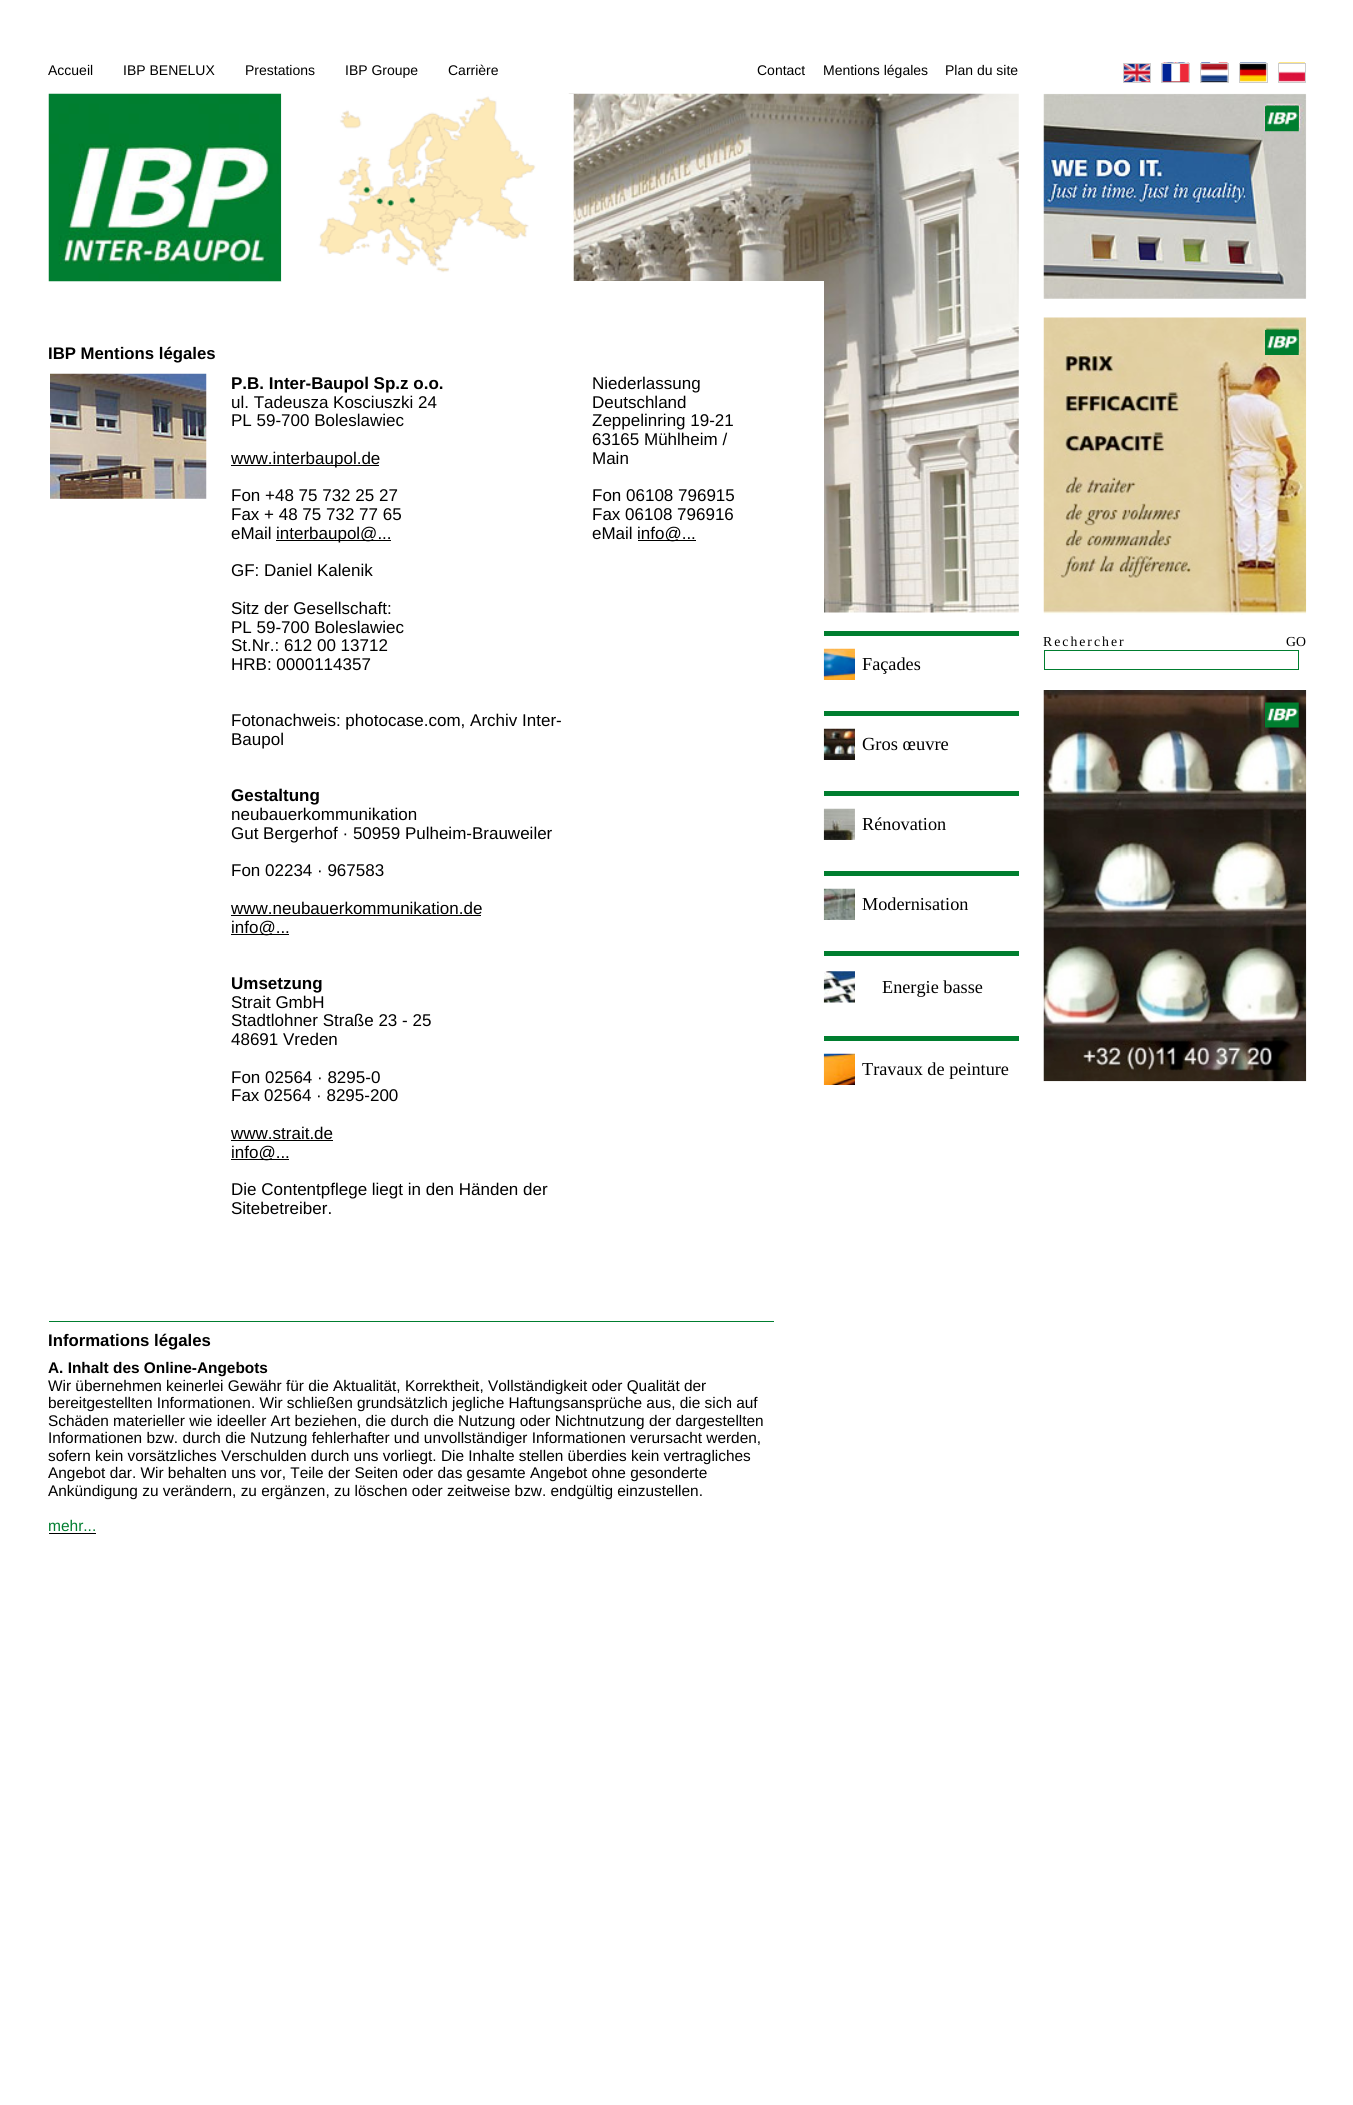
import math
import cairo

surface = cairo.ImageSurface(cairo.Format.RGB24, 1353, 2105)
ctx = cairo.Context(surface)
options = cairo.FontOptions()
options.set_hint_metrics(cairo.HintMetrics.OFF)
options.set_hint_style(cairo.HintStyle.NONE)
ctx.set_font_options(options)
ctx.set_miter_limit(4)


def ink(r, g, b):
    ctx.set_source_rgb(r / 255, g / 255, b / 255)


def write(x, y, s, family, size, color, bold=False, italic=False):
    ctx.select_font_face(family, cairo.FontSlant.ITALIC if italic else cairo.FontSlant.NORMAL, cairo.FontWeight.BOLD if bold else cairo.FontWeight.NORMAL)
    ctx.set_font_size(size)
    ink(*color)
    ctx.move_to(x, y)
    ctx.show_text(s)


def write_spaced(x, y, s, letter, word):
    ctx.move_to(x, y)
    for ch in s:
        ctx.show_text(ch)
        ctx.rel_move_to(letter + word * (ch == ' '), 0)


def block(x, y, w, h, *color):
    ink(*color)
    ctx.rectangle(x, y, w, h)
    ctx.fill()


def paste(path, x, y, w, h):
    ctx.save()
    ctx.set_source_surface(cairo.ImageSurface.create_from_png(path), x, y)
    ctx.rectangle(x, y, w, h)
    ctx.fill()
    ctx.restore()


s1 = dict(family="Liberation Sans", size=14, color=(0, 0, 0))
s2 = dict(family="Liberation Sans", size=16.75, color=(0, 0, 0), bold=True)
s3 = dict(family="Liberation Sans", size=17, color=(0, 0, 0), bold=True)
s4 = dict(family="Liberation Sans", size=17, color=(0, 0, 0))
s5 = dict(family="Liberation Sans", size=15.4, color=(0, 0, 0), bold=True)
s6 = dict(family="Liberation Sans", size=15.4, color=(0, 0, 0))
s7 = dict(family="Liberation Sans", size=15.5, color=(0, 126, 47))
s8 = dict(family="Liberation Serif", size=13.75, color=(0, 0, 0))
s9 = dict(family="Liberation Serif", size=18.25, color=(0, 0, 0))
s10 = dict(family="Liberation Serif", size=18.5, color=(0, 0, 0))

ink(255, 255, 255)
ctx.paint()
write(48, 75, "Accueil", **s1)
write(123, 75, "IBP BENELUX", **s1)
write(245, 75, "Prestations", **s1)
write(345, 75, "IBP Groupe", **s1)
write(448, 75, "Carrière", **s1)
write(757, 75, "Contact", **s1)
write(823, 75, "Mentions légales", **s1)
write(945, 75, "Plan du site", **s1)
paste("pic1.png", 1124, 64, 26, 18)
ctx.rectangle(1123.5, 63.5, 27, 19)
ink(204, 204, 204)
ctx.set_line_width(1)
ctx.stroke()
paste("pic2.png", 1162, 62, 27, 20)
ctx.rectangle(1161.5, 63.5, 28, 19)
ctx.stroke()
paste("pic3.png", 1201, 62, 27, 20)
ctx.rectangle(1200.5, 63.5, 28, 19)
ctx.stroke()
paste("pic4.png", 1240, 62, 27, 20)
ctx.rectangle(1239.5, 63.5, 28, 19)
ctx.stroke()
paste("pic5.png", 1278, 62, 27, 20)
ctx.rectangle(1278.5, 63.5, 27, 19)
ctx.stroke()
paste("pic7.png", 48, 93, 234, 189)
paste("pic8.png", 568, 93, 451, 520)
paste("pic6.png", 281, 93, 293, 188)
block(568, 281, 256, 332, 255, 255, 255)
write(48, 359, "IBP Mentions légales", **s2)
paste("pic9.png", 50, 373, 157, 126)
write(231, 389, "P.B. Inter-Baupol Sp.z o.o.", **s3)
write(231, 408, "ul. Tadeusza Kosciuszki 24", **s4)
write(231, 426, "PL 59-700 Boleslawiec", **s4)
block(231, 465, 148, 1, 0, 0, 0)
write(231, 464, "www.interbaupol.de", **s4)
write(231, 501, "Fon +48 75 732 25 27", **s4)
write(231, 520, "Fax + 48 75 732 77 65", **s4)
write(231, 539, "eMail", **s4)
block(276, 540, 115, 1, 0, 0, 0)
write(276, 539, "interbaupol@...", **s4)
write(231, 576, "GF: Daniel Kalenik", **s4)
write(231, 614, "Sitz der Gesellschaft:", **s4)
write(231, 633, "PL 59-700 Boleslawiec", **s4)
write(231, 651, "St.Nr.: 612 00 13712", **s4)
write(231, 670, "HRB: 0000114357", **s4)
write(231, 726, "Fotonachweis: photocase.com, Archiv Inter-", **s4)
write(231, 745, "Baupol", **s4)
write(231, 801, "Gestaltung", **s3)
write(231, 820, "neubauerkommunikation", **s4)
write(231, 839, "Gut Bergerhof · 50959 Pulheim-Brauweiler", **s4)
write(231, 876, "Fon 02234 · 967583", **s4)
write(231, 914, "www.neubauerkommunikation.de", **s4)
block(231, 915, 250, 1, 0, 0, 0)
block(231, 934, 58, 1, 0, 0, 0)
write(231, 933, "info@...", **s4)
write(231, 989, "Umsetzung", **s3)
write(231, 1008, "Strait GmbH", **s4)
write(231, 1026, "Stadtlohner Straße 23 - 25", **s4)
write(231, 1045, "48691 Vreden", **s4)
write(231, 1083, "Fon 02564 · 8295-0", **s4)
write(231, 1101, "Fax 02564 · 8295-200", **s4)
write(231, 1139, "www.strait.de", **s4)
block(231, 1140, 102, 1, 0, 0, 0)
block(231, 1159, 58, 1, 0, 0, 0)
write(231, 1158, "info@...", **s4)
write(231, 1195, "Die Contentpflege liegt in den Händen der", **s4)
write(231, 1214, "Sitebetreiber.", **s4)
write(592, 389, "Niederlassung", **s4)
write(592, 408, "Deutschland", **s4)
write(592, 426, "Zeppelinring 19-21", **s4)
write(592, 445, "63165 Mühlheim /", **s4)
write(592, 464, "Main", **s4)
write(592, 501, "Fon 06108 796915", **s4)
write(592, 520, "Fax 06108 796916", **s4)
write(592, 539, "eMail", **s4)
block(638, 540, 58, 1, 0, 0, 0)
write(637, 539, "info@...", **s4)
block(49, 1321, 725, 1, 0, 126, 47)
write(48, 1346, "Informations légales", **s2)
write(48, 1373, "A. Inhalt des Online-Angebots", **s5)
write(48, 1391, "Wir übernehmen keinerlei Gewähr für die Aktualität, Korrektheit, Vollständigkeit oder Qualität der", **s6)
write(48, 1408, "bereitgestellten Informationen. Wir schließen grundsätzlich jegliche Haftungsansprüche aus, die sich auf", **s6)
write(48, 1426, "Schäden materieller wie ideeller Art beziehen, die durch die Nutzung oder Nichtnutzung der dargestellten", **s6)
write(48, 1443, "Informationen bzw. durch die Nutzung fehlerhafter und unvollständiger Informationen verursacht werden,", **s6)
write(48, 1461, "sofern kein vorsätzliches Verschulden durch uns vorliegt. Die Inhalte stellen überdies kein vertragliches", **s6)
write(48, 1478, "Angebot dar. Wir behalten uns vor, Teile der Seiten oder das gesamte Angebot ohne gesonderte", **s6)
write(48, 1496, "Ankündigung zu verändern, zu ergänzen, zu löschen oder zeitweise bzw. endgültig einzustellen.", **s6)
write(48, 1531, "mehr...", **s7)
block(49, 1533, 47, 1, 0, 0, 0)
paste("pic10.png", 1043, 93, 264, 206)
paste("pic11.png", 1265, 106, 34, 26)
paste("pic12.png", 1043, 317, 264, 298)
paste("pic13.png", 1265, 330, 34, 25)
ctx.select_font_face("Liberation Serif")
ctx.set_font_size(13.75)
write_spaced(1043, 646, "Rechercher", 2, 0)
write(1286, 646, "GO", **s8)
ctx.rectangle(1044.5, 650.5, 254, 19)
ink(0, 126, 47)
ctx.stroke()
paste("pic14.png", 1043, 690, 264, 392)
paste("pic15.png", 1265, 702, 34, 26)
block(824, 631, 195, 5, 0, 126, 47)
paste("pic16.png", 823, 648, 32, 32)
write(862, 670, "Façades", **s9)
block(824, 711, 195, 5, 0, 126, 47)
paste("pic17.png", 823, 728, 32, 32)
write(862, 750, "Gros œuvre", **s10)
block(824, 791, 195, 5, 0, 126, 47)
paste("pic18.png", 823, 808, 32, 32)
write(862, 830, "Rénovation", **s9)
block(824, 871, 195, 5, 0, 126, 47)
paste("pic19.png", 823, 888, 32, 32)
write(862, 910, "Modernisation", **s9)
block(824, 951, 195, 5, 0, 126, 47)
paste("pic20.png", 823, 971, 32, 32)
write(882, 993, "Energie basse", **s9)
block(824, 1036, 195, 5, 0, 126, 47)
paste("pic21.png", 823, 1053, 32, 32)
write(862, 1075, "Travaux de peinture", **s9)
surface.write_to_png("screenshot.png")
